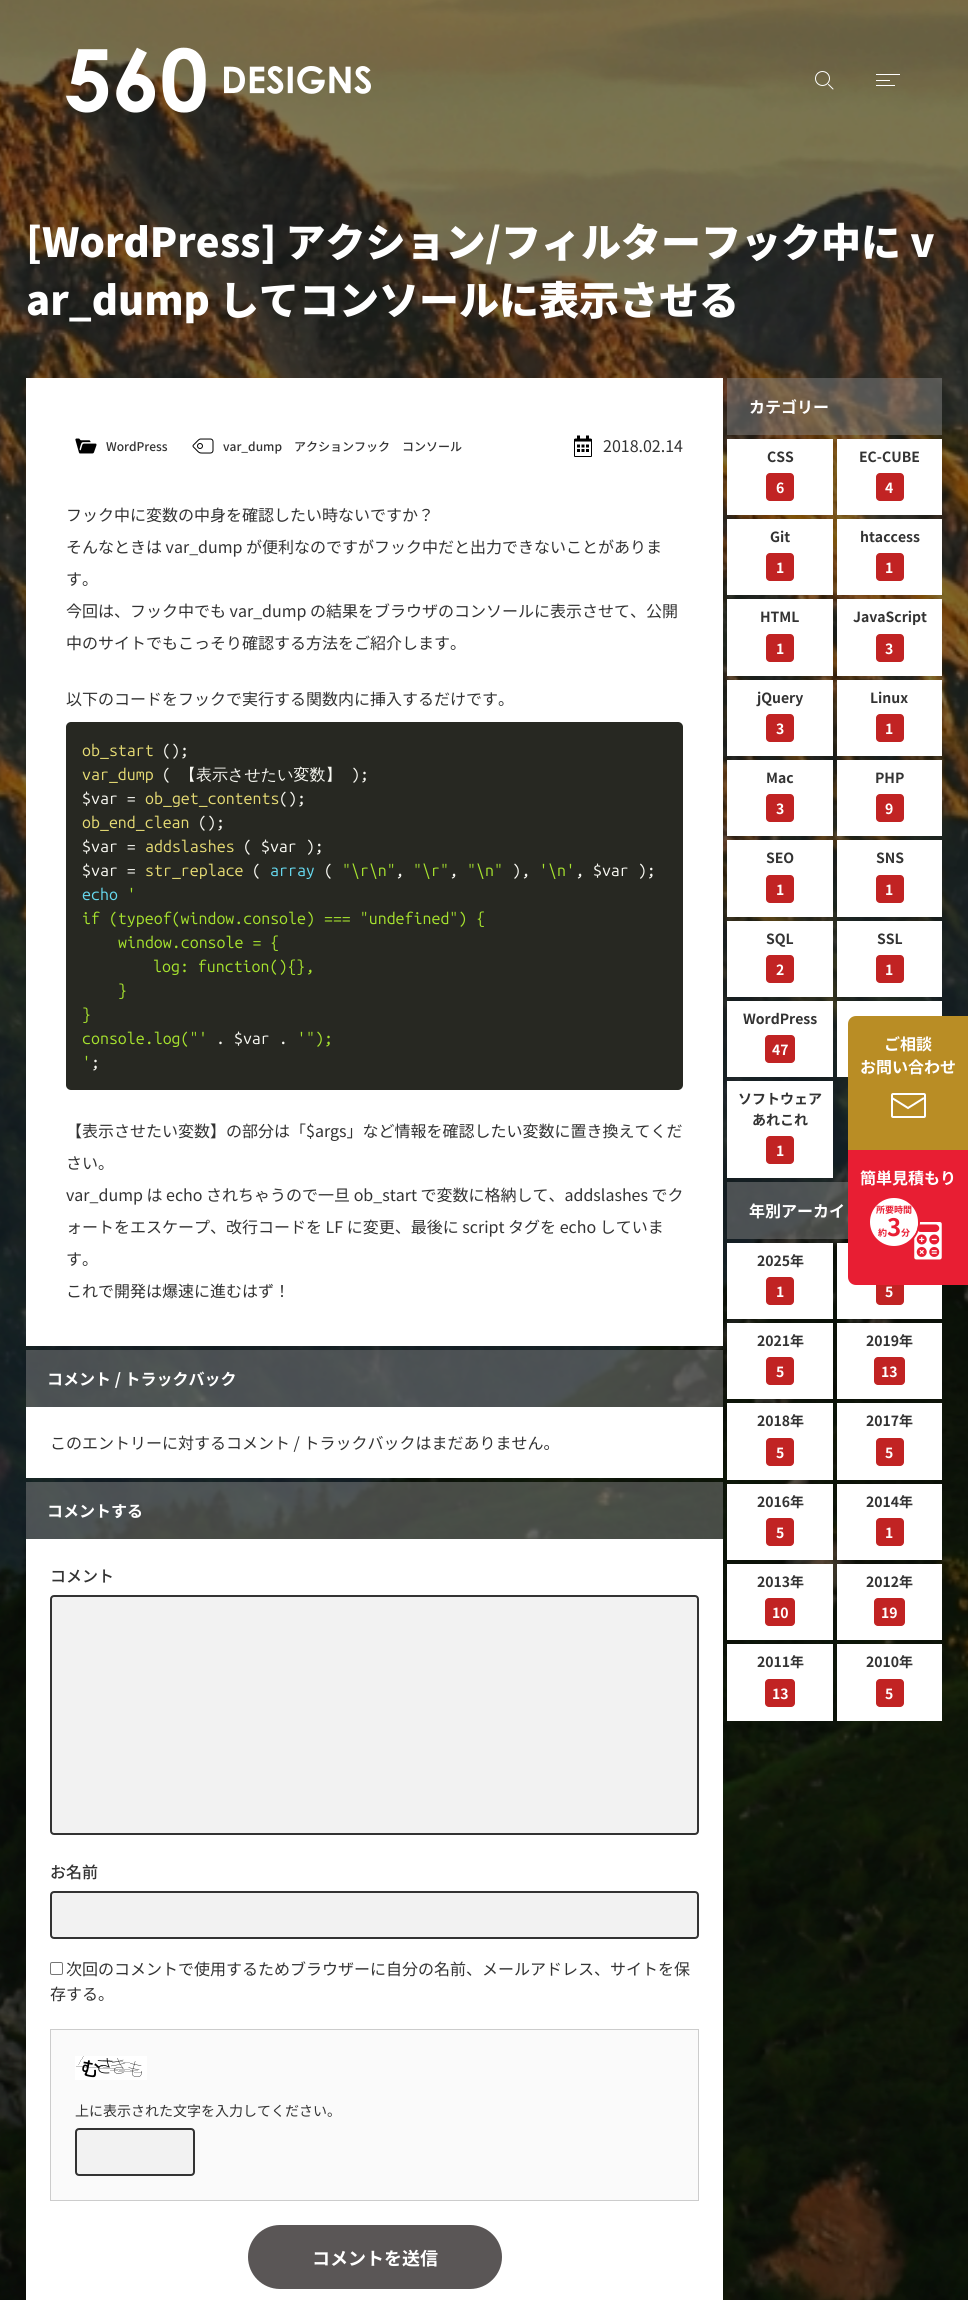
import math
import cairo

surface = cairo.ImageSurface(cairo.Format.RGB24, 968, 2300)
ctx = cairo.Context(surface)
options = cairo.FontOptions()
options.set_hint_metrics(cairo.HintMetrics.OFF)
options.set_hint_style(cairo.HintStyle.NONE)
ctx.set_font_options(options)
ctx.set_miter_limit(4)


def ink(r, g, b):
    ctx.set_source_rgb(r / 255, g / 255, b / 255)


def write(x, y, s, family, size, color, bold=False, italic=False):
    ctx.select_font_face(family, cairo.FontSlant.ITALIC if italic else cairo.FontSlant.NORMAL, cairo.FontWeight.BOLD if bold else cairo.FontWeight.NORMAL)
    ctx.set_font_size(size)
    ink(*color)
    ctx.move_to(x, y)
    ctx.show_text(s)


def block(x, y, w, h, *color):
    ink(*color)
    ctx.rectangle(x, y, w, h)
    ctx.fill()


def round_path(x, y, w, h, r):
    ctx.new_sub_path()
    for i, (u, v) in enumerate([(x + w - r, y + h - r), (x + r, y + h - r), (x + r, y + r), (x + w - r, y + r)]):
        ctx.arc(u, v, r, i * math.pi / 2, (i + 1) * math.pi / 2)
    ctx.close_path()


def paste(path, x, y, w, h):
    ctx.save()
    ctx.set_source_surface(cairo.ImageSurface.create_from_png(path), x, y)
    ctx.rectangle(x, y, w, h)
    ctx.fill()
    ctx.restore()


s1 = dict(family="Noto Sans JP Black", size=40, color=(255, 255, 255))
s2 = dict(family="Noto Sans JP Medium", size=12, color=(51, 51, 51))
s3 = dict(family="Noto Sans JP", size=16, color=(51, 51, 51))
s4 = dict(family="Ubuntu Mono", size=16, color=(230, 219, 116))
s5 = dict(family="Ubuntu Mono", size=16, color=(248, 248, 242))
s6 = dict(family="WenQuanYi Zen Hei Medium", size=16, color=(248, 248, 242))
s7 = dict(family="Ubuntu Mono", size=16, color=(102, 217, 239))
s8 = dict(family="Ubuntu Mono", size=16, color=(166, 226, 46))
s9 = dict(family="Noto Sans JP", size=16, color=(255, 255, 255), bold=True)
s10 = dict(family="Noto Sans JP Medium", size=16, color=(51, 51, 51))
s11 = dict(family="Noto Sans JP", size=14, color=(51, 51, 51))
s12 = dict(family="Noto Sans JP", size=18, color=(255, 255, 255), bold=True)
s13 = dict(family="Noto Sans JP", size=14, color=(51, 51, 51), bold=True)
s14 = dict(family="Noto Sans JP", size=14, color=(255, 255, 255), bold=True)
s15 = dict(family="Noto Sans JP", size=9, color=(232, 30, 51), bold=True)
s16 = dict(family="Noto Sans JP", size=24, color=(232, 30, 51), bold=True)

ink(255, 255, 255)
ctx.paint()
paste("pic1.png", 0, 0, 968, 2300)
paste("pic2.png", 66, 49, 43, 64)
paste("pic3.png", 116, 47, 39, 66)
paste("pic4.png", 162, 47, 44, 66)
paste("pic5.png", 224, 66, 147, 28)
ctx.arc(822.5, 78.5, 7, 0, 2 * math.pi)
ink(255, 255, 255)
ctx.set_line_width(1)
ctx.stroke()
ctx.new_path()
ctx.move_to(828.5, 84.5)
ctx.line_to(833, 89)
ctx.set_line_cap(cairo.LineCap.ROUND)
ctx.stroke()
block(876, 74, 24, 1, 255, 255, 255)
block(876, 80, 14, 1, 255, 255, 255)
block(876, 85, 19, 1, 255, 255, 255)
write(26, 257, "[WordPress] アクション/フィルターフック中に v", **s1)
write(26, 315, "ar_dump してコンソールに表示させる", **s1)
block(26, 378, 697, 968, 255, 255, 255)
paste("pic6.png", 75, 438, 22, 16)
write(106, 451, "WordPress", **s2)
paste("pic7.png", 192, 438, 22, 16)
write(223, 451, "var_dump", **s2)
write(294, 451, "アクションフック", **s2)
write(402, 451, "コンソール", **s2)
paste("pic8.png", 574, 435, 18, 22)
write(603, 452, "2018.02.14", **s3)
write(66, 521, "フック中に変数の中身を確認したい時ないですか？", **s3)
write(66, 553, "そんなときは var_dump が便利なのですがフック中だと出力できないことがありま", **s3)
write(66, 585, "す。", **s3)
write(66, 617, "今回は、フック中でも var_dump の結果をブラウザのコンソールに表示させて、公開", **s3)
write(66, 649, "中のサイトでもこっそり確認する方法をご紹介します。", **s3)
write(66, 705, "以下のコードをフックで実行する関数内に挿入するだけです。", **s3)
ink(39, 40, 34)
round_path(66, 722, 617, 368, 5)
ctx.fill()
write(82, 756, "ob_start", **s4)
write(162, 756, "();", **s5)
write(82, 780, "var_dump", **s4)
write(162, 780, "(", **s5)
write(180, 780, "【表示させたい変数】", **s6)
write(351, 780, ");", **s5)
write(82, 804, "$var =", **s5)
write(145, 804, "ob_get_contents", **s4)
write(279, 804, "();", **s5)
write(82, 828, "ob_end_clean", **s4)
write(198, 828, "();", **s5)
write(82, 852, "$var =", **s5)
write(145, 852, "addslashes", **s4)
write(243, 852, "( $var );", **s5)
write(82, 876, "$var =", **s5)
write(145, 876, "str_replace", **s4)
write(252, 876, "(", **s5)
write(270, 876, "array", **s7)
write(324, 876, "(", **s5)
write(342, 876, "\"\\r\\n\"", **s8)
write(395, 876, ",", **s5)
write(413, 876, "\"\\r\"", **s8)
write(449, 876, ",", **s5)
write(467, 876, "\"\\n\"", **s8)
write(512, 876, "),", **s5)
write(539, 876, "'\\n'", **s8)
write(575, 876, ", $var );", **s5)
write(82, 900, "echo", **s7)
write(127, 900, "'", **s8)
write(82, 924, "if (typeof(window.console) === \"undefined\") {", **s8)
write(118, 948, "window.console = {", **s8)
write(153, 972, "log: function(){},", **s8)
write(118, 996, "}", **s8)
write(82, 1020, "}", **s8)
write(82, 1044, "console.log(\"'", **s8)
write(216, 1044, ". $var .", **s5)
write(297, 1044, "'\");", **s8)
write(82, 1068, "'", **s8)
write(91, 1068, ";", **s5)
write(66, 1137, "【表示させたい変数】の部分は「$args」など情報を確認したい変数に置き換えてくだ", **s3)
write(66, 1169, "さい。", **s3)
write(66, 1201, "var_dump は echo されちゃうので一旦 ob_start で変数に格納して、addslashes でク", **s3)
write(66, 1233, "ォートをエスケープ、改行コードを LF に変更、最後に script タグを echo していま", **s3)
write(66, 1265, "す。", **s3)
write(66, 1297, "これで開発は爆速に進むはず！", **s3)
ctx.set_source_rgba(0.522, 0.522, 0.522, 0.5)
ctx.rectangle(26, 1350, 697, 57)
ctx.fill()
write(47, 1385, "コメント / トラックバック", **s9)
block(26, 1407, 697, 71, 255, 255, 255)
write(50, 1449, "このエントリーに対するコメント / トラックバックはまだありません。", **s3)
ctx.set_source_rgba(0.522, 0.522, 0.522, 0.5)
ctx.rectangle(26, 1482, 697, 57)
ctx.fill()
write(47, 1517, "コメントする", **s9)
block(26, 1539, 697, 761, 255, 255, 255)
write(50, 1582, "コメント", **s10)
ink(242, 242, 242)
round_path(51, 1596, 647, 238, 3)
ctx.fill_preserve()
ink(51, 51, 51)
ctx.set_line_width(2)
ctx.set_line_cap(cairo.LineCap.BUTT)
ctx.stroke()
write(50, 1878, "お名前", **s10)
ink(242, 242, 242)
round_path(51, 1892, 647, 46, 3)
ctx.fill_preserve()
ink(51, 51, 51)
ctx.stroke()
round_path(50.5, 1962.5, 12, 12, 1.5)
ink(118, 118, 118)
ctx.set_line_width(1)
ctx.stroke()
write(66, 1975, "次回のコメントで使用するためブラウザーに自分の名前、メールアドレス、サイトを保", **s3)
write(50, 2000, "存する。", **s3)
ink(250, 250, 250)
ctx.rectangle(50.5, 2029.5, 648, 171)
ctx.fill_preserve()
ink(204, 204, 204)
ctx.stroke()
paste("pic9.png", 75, 2056, 72, 24)
write(75, 2116, "上に表示された文字を入力してください。", **s11)
ink(242, 242, 242)
round_path(76, 2129, 118, 46, 3)
ctx.fill_preserve()
ink(51, 51, 51)
ctx.set_line_width(2)
ctx.stroke()
ink(90, 86, 86)
round_path(248, 2225, 254, 64, 32)
ctx.fill()
write(312, 2265, "コメントを送信", **s12)
ctx.set_source_rgba(0.522, 0.522, 0.522, 0.5)
ctx.rectangle(727, 378, 215, 57)
ctx.fill()
write(749, 413, "カテゴリー", **s9)
block(727, 439, 106, 76, 255, 255, 255)
write(767, 462, "CSS", **s13)
ink(193, 35, 35)
round_path(766, 473, 28, 28, 4)
ctx.fill()
write(776, 493, "6", **s14)
block(837, 439, 105, 76, 255, 255, 255)
write(859, 462, "EC-CUBE", **s13)
ink(193, 35, 35)
round_path(876, 473, 28, 28, 4)
ctx.fill()
write(885, 493, "4", **s14)
block(727, 519, 106, 76, 255, 255, 255)
write(770, 542, "Git", **s13)
ink(193, 35, 35)
round_path(766, 553, 28, 28, 4)
ctx.fill()
write(776, 573, "1", **s14)
block(837, 519, 105, 76, 255, 255, 255)
write(860, 542, "htaccess", **s13)
ink(193, 35, 35)
round_path(876, 553, 28, 28, 4)
ctx.fill()
write(885, 573, "1", **s14)
block(727, 599, 106, 77, 255, 255, 255)
write(760, 622, "HTML", **s13)
ink(193, 35, 35)
round_path(766, 634, 28, 28, 4)
ctx.fill()
write(776, 654, "1", **s14)
block(837, 599, 105, 77, 255, 255, 255)
write(853, 622, "JavaScript", **s13)
ink(193, 35, 35)
round_path(876, 634, 28, 28, 4)
ctx.fill()
write(885, 654, "3", **s14)
block(727, 680, 106, 76, 255, 255, 255)
write(757, 703, "jQuery", **s13)
ink(193, 35, 35)
round_path(766, 714, 28, 28, 4)
ctx.fill()
write(776, 734, "3", **s14)
block(837, 680, 105, 76, 255, 255, 255)
write(870, 703, "Linux", **s13)
ink(193, 35, 35)
round_path(876, 714, 28, 28, 4)
ctx.fill()
write(885, 734, "1", **s14)
block(727, 760, 106, 76, 255, 255, 255)
write(766, 783, "Mac", **s13)
ink(193, 35, 35)
round_path(766, 794, 28, 28, 4)
ctx.fill()
write(776, 814, "3", **s14)
block(837, 760, 105, 76, 255, 255, 255)
write(875, 783, "PHP", **s13)
ink(193, 35, 35)
round_path(876, 794, 28, 28, 4)
ctx.fill()
write(885, 814, "9", **s14)
block(727, 840, 106, 77, 255, 255, 255)
write(766, 863, "SEO", **s13)
ink(193, 35, 35)
round_path(766, 875, 28, 28, 4)
ctx.fill()
write(776, 895, "1", **s14)
block(837, 840, 105, 77, 255, 255, 255)
write(876, 863, "SNS", **s13)
ink(193, 35, 35)
round_path(876, 875, 28, 28, 4)
ctx.fill()
write(885, 895, "1", **s14)
block(727, 921, 106, 76, 255, 255, 255)
write(766, 944, "SQL", **s13)
ink(193, 35, 35)
round_path(766, 955, 28, 28, 4)
ctx.fill()
write(776, 975, "2", **s14)
block(837, 921, 105, 76, 255, 255, 255)
write(877, 944, "SSL", **s13)
ink(193, 35, 35)
round_path(876, 955, 28, 28, 4)
ctx.fill()
write(885, 975, "1", **s14)
block(727, 1001, 106, 76, 255, 255, 255)
write(743, 1024, "WordPress", **s13)
ink(193, 35, 35)
round_path(765, 1035, 30, 28, 4)
ctx.fill()
write(772, 1055, "47", **s14)
block(837, 1001, 105, 76, 255, 255, 255)
block(727, 1081, 106, 97, 255, 255, 255)
write(738, 1104, "ソフトウェア", **s13)
write(752, 1125, "あれこれ", **s13)
ink(193, 35, 35)
round_path(766, 1136, 28, 28, 4)
ctx.fill()
write(776, 1156, "1", **s14)
ctx.set_source_rgba(0.522, 0.522, 0.522, 0.5)
ctx.rectangle(727, 1182, 121, 57)
ctx.fill()
write(749, 1217, "年別アーカイ", **s9)
block(727, 1243, 106, 76, 255, 255, 255)
write(757, 1266, "2025年", **s13)
ink(193, 35, 35)
round_path(766, 1277, 28, 28, 4)
ctx.fill()
write(776, 1297, "1", **s14)
block(837, 1243, 105, 76, 255, 255, 255)
ink(193, 35, 35)
round_path(876, 1277, 28, 28, 4)
ctx.fill()
write(885, 1297, "5", **s14)
block(727, 1323, 106, 76, 255, 255, 255)
write(757, 1346, "2021年", **s13)
ink(193, 35, 35)
round_path(766, 1357, 28, 28, 4)
ctx.fill()
write(776, 1377, "5", **s14)
block(837, 1323, 105, 76, 255, 255, 255)
write(866, 1346, "2019年", **s13)
ink(193, 35, 35)
round_path(874, 1357, 31, 28, 4)
ctx.fill()
write(881, 1377, "13", **s14)
block(727, 1403, 106, 77, 255, 255, 255)
write(757, 1426, "2018年", **s13)
ink(193, 35, 35)
round_path(766, 1438, 28, 28, 4)
ctx.fill()
write(776, 1458, "5", **s14)
block(837, 1403, 105, 77, 255, 255, 255)
write(866, 1426, "2017年", **s13)
ink(193, 35, 35)
round_path(876, 1438, 28, 28, 4)
ctx.fill()
write(885, 1458, "5", **s14)
block(727, 1484, 106, 76, 255, 255, 255)
write(757, 1507, "2016年", **s13)
ink(193, 35, 35)
round_path(766, 1518, 28, 28, 4)
ctx.fill()
write(776, 1538, "5", **s14)
block(837, 1484, 105, 76, 255, 255, 255)
write(866, 1507, "2014年", **s13)
ink(193, 35, 35)
round_path(876, 1518, 28, 28, 4)
ctx.fill()
write(885, 1538, "1", **s14)
block(727, 1564, 106, 76, 255, 255, 255)
write(757, 1587, "2013年", **s13)
ink(193, 35, 35)
round_path(765, 1598, 30, 28, 4)
ctx.fill()
write(772, 1618, "10", **s14)
block(837, 1564, 105, 76, 255, 255, 255)
write(866, 1587, "2012年", **s13)
ink(193, 35, 35)
round_path(874, 1598, 31, 28, 4)
ctx.fill()
write(881, 1618, "19", **s14)
block(727, 1644, 106, 77, 255, 255, 255)
write(757, 1667, "2011年", **s13)
ink(193, 35, 35)
round_path(765, 1679, 30, 28, 4)
ctx.fill()
write(772, 1699, "13", **s14)
block(837, 1644, 105, 77, 255, 255, 255)
write(866, 1667, "2010年", **s13)
ink(193, 35, 35)
round_path(876, 1679, 28, 28, 4)
ctx.fill()
write(885, 1699, "5", **s14)
ink(185, 141, 37)
ctx.new_path()
ctx.move_to(856, 1016)
ctx.line_to(968, 1016)
ctx.line_to(968, 1150)
ctx.line_to(848, 1150)
ctx.line_to(848, 1024)
ctx.curve_to(848, 1019.5, 851.5, 1016, 856, 1016)
ctx.close_path()
ctx.fill()
write(884, 1050, "ご相談", **s9)
write(860, 1073, "お問い合わせ", **s9)
round_path(892, 1094, 33, 23, 1)
ctx.stroke()
ctx.new_path()
ctx.move_to(892, 1098)
ctx.line_to(908, 1108)
ctx.line_to(924, 1098)
ctx.stroke()
ink(232, 30, 51)
ctx.new_path()
ctx.move_to(848, 1150)
ctx.line_to(968, 1150)
ctx.line_to(968, 1285)
ctx.line_to(856, 1285)
ctx.curve_to(851.5, 1285, 848, 1281.5, 848, 1277)
ctx.close_path()
ctx.fill()
write(860, 1184, "簡単見積もり", **s9)
paste("pic10.png", 914, 1222, 28, 38)
ctx.arc(894, 1222, 25, 0, 2 * math.pi)
ink(232, 30, 51)
ctx.stroke()
ink(255, 255, 255)
ctx.arc(894, 1222, 24, 0, 2 * math.pi)
ctx.fill()
write(876, 1213, "所要時間", **s15)
write(878, 1236, "約", **s15)
write(887, 1236, "3", **s16)
write(901, 1236, "分", **s15)
surface.write_to_png("screenshot.png")
